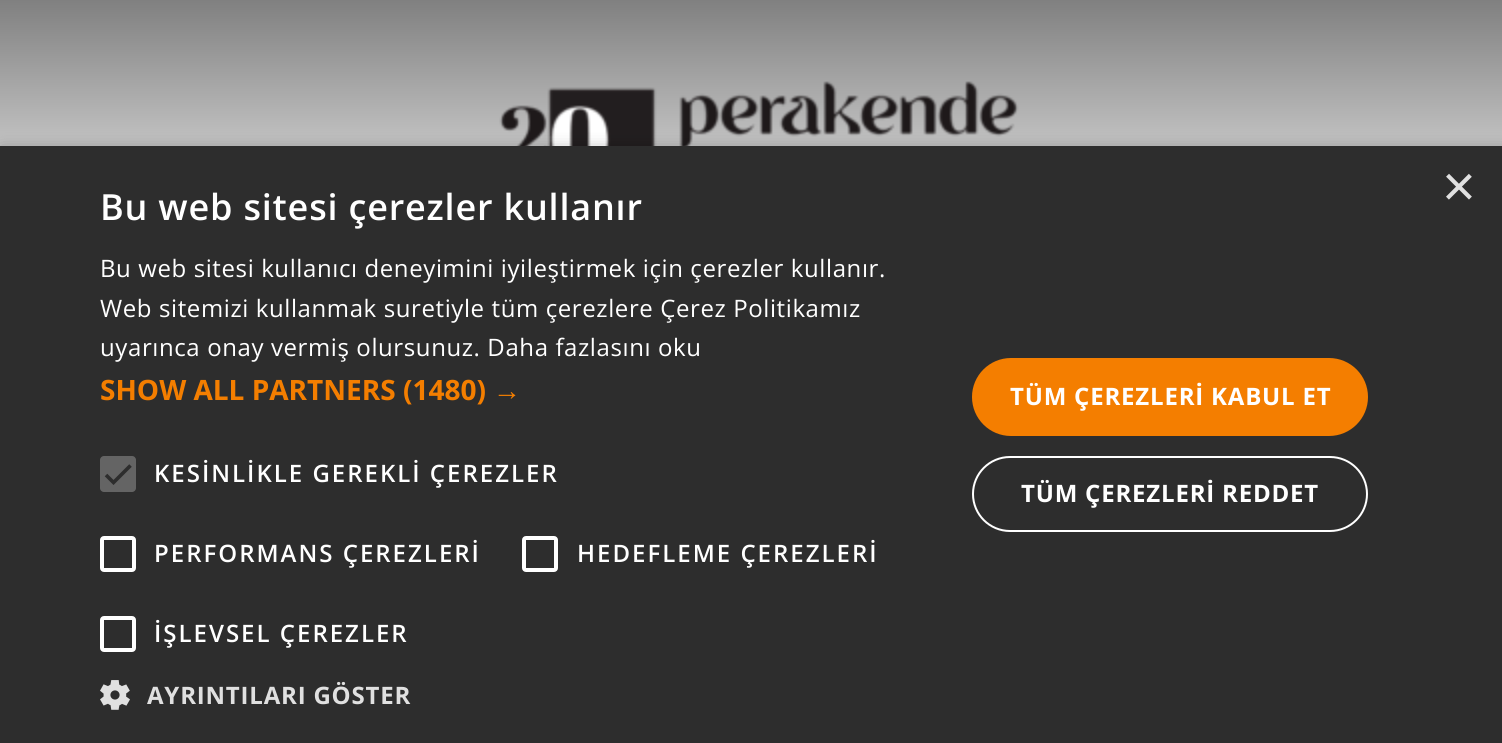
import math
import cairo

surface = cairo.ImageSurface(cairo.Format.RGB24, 1502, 743)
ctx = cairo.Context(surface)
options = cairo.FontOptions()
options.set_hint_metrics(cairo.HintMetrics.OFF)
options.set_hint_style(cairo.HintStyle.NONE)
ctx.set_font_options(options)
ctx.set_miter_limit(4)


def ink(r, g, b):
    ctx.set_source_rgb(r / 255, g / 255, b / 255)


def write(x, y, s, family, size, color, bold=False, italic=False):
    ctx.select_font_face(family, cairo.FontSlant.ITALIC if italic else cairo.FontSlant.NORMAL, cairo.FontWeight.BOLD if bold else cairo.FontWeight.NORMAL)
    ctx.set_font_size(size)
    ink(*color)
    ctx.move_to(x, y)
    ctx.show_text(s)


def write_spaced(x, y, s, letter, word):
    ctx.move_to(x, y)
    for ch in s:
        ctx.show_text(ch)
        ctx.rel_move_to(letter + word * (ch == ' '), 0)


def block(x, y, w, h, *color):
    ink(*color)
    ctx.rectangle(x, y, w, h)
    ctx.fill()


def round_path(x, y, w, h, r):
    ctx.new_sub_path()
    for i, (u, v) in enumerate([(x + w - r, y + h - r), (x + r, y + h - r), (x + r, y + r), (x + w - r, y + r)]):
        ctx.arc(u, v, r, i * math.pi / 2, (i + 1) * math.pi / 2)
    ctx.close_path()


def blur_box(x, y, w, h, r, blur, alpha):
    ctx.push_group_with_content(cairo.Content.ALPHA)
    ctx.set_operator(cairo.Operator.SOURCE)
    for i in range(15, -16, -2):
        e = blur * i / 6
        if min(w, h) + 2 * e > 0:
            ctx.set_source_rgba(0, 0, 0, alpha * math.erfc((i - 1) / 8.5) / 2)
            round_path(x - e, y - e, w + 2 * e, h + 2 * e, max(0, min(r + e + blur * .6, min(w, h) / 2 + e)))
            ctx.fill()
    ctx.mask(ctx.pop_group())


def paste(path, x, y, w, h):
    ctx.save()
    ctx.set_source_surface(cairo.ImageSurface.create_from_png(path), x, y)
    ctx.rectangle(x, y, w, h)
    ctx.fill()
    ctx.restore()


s1 = dict(family="Liberation Sans", size=58, color=(224, 224, 224))
s2 = dict(family="Open Sans", size=28, color=(244, 126, 0), bold=True)
s3 = dict(family="Liberation Sans", size=28, color=(244, 126, 0), bold=True)

ink(255, 255, 255)
ctx.paint()
gradient = cairo.LinearGradient(751, 0, 751, 280)
gradient.add_color_stop_rgba(0, 0.502, 0.502, 0.502, 1)
gradient.add_color_stop_rgba(1, 1, 1, 1, 1)
ctx.set_source(gradient)
ctx.rectangle(0, 0, 1502, 146)
ctx.fill()
paste("pic1.png", 499, 81, 520, 65)
ink(0, 0, 0)
blur_box(2, 150, 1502, 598, 0, 8, 0.35)
block(0, 146, 1502, 597, 45, 45, 45)
write(1442, 206, "×", **s1)
ctx.select_font_face("Open Sans SemiBold")
ctx.set_font_size(36)
ink(255, 255, 255)
write_spaced(100, 220, "Bu web sitesi çerezler kullanır", 0.8, 0)
ctx.select_font_face("Open Sans")
ctx.set_font_size(24)
write_spaced(100, 277, "Bu web sitesi kullanıcı deneyimini iyileştirmek için çerezler kullanır.", 0.6, 0)
write_spaced(100, 317, "Web sitemizi kullanmak suretiyle tüm çerezlere Çerez Politikamız", 0.6, 0)
write_spaced(100, 356, "uyarınca onay vermiş olursunuz. Daha fazlasını oku", 0.6, 0)
write(100, 400, "SHOW ALL PARTNERS (1480)", **s2)
write(493, 400, "→", **s3)
ink(100, 100, 100)
round_path(100, 456, 36, 36, 4)
ctx.fill()
ctx.new_path()
ctx.move_to(106, 475)
ctx.line_to(113.5, 482.5)
ctx.line_to(130.5, 465.5)
ink(45, 45, 45)
ctx.set_line_width(3.6)
ctx.stroke()
ctx.select_font_face("Open Sans SemiBold")
ctx.set_font_size(24)
ink(255, 255, 255)
write_spaced(154, 482, "KESİNLİKLE GEREKLİ ÇEREZLER", 2, 0)
round_path(102, 538, 32, 32, 2)
ctx.set_line_width(4)
ctx.stroke()
write_spaced(154, 562, "PERFORMANS ÇEREZLERİ", 2, 0)
round_path(524, 538, 32, 32, 2)
ctx.stroke()
write_spaced(577, 562, "HEDEFLEME ÇEREZLERİ", 2, 0)
round_path(102, 618, 32, 32, 2)
ctx.stroke()
write_spaced(154, 642, "İŞLEVSEL ÇEREZLER", 2, 0)
paste("pic2.png", 100, 680, 30, 30)
ctx.select_font_face("Open Sans", cairo.FontSlant.NORMAL, cairo.FontWeight.BOLD)
ink(224, 224, 224)
write_spaced(147, 704, "AYRINTILARI GÖSTER", 0.8, 0)
ink(244, 126, 0)
round_path(972, 358, 396, 78, 39)
ctx.fill()
ink(255, 255, 255)
write_spaced(1010, 405, "TÜM ÇEREZLERİ KABUL ET", 0.8, 0)
round_path(973, 457, 394, 74, 37)
ctx.set_line_width(2)
ctx.stroke()
write_spaced(1021, 502, "TÜM ÇEREZLERİ REDDET", 0.8, 0)
surface.write_to_png("screenshot.png")
